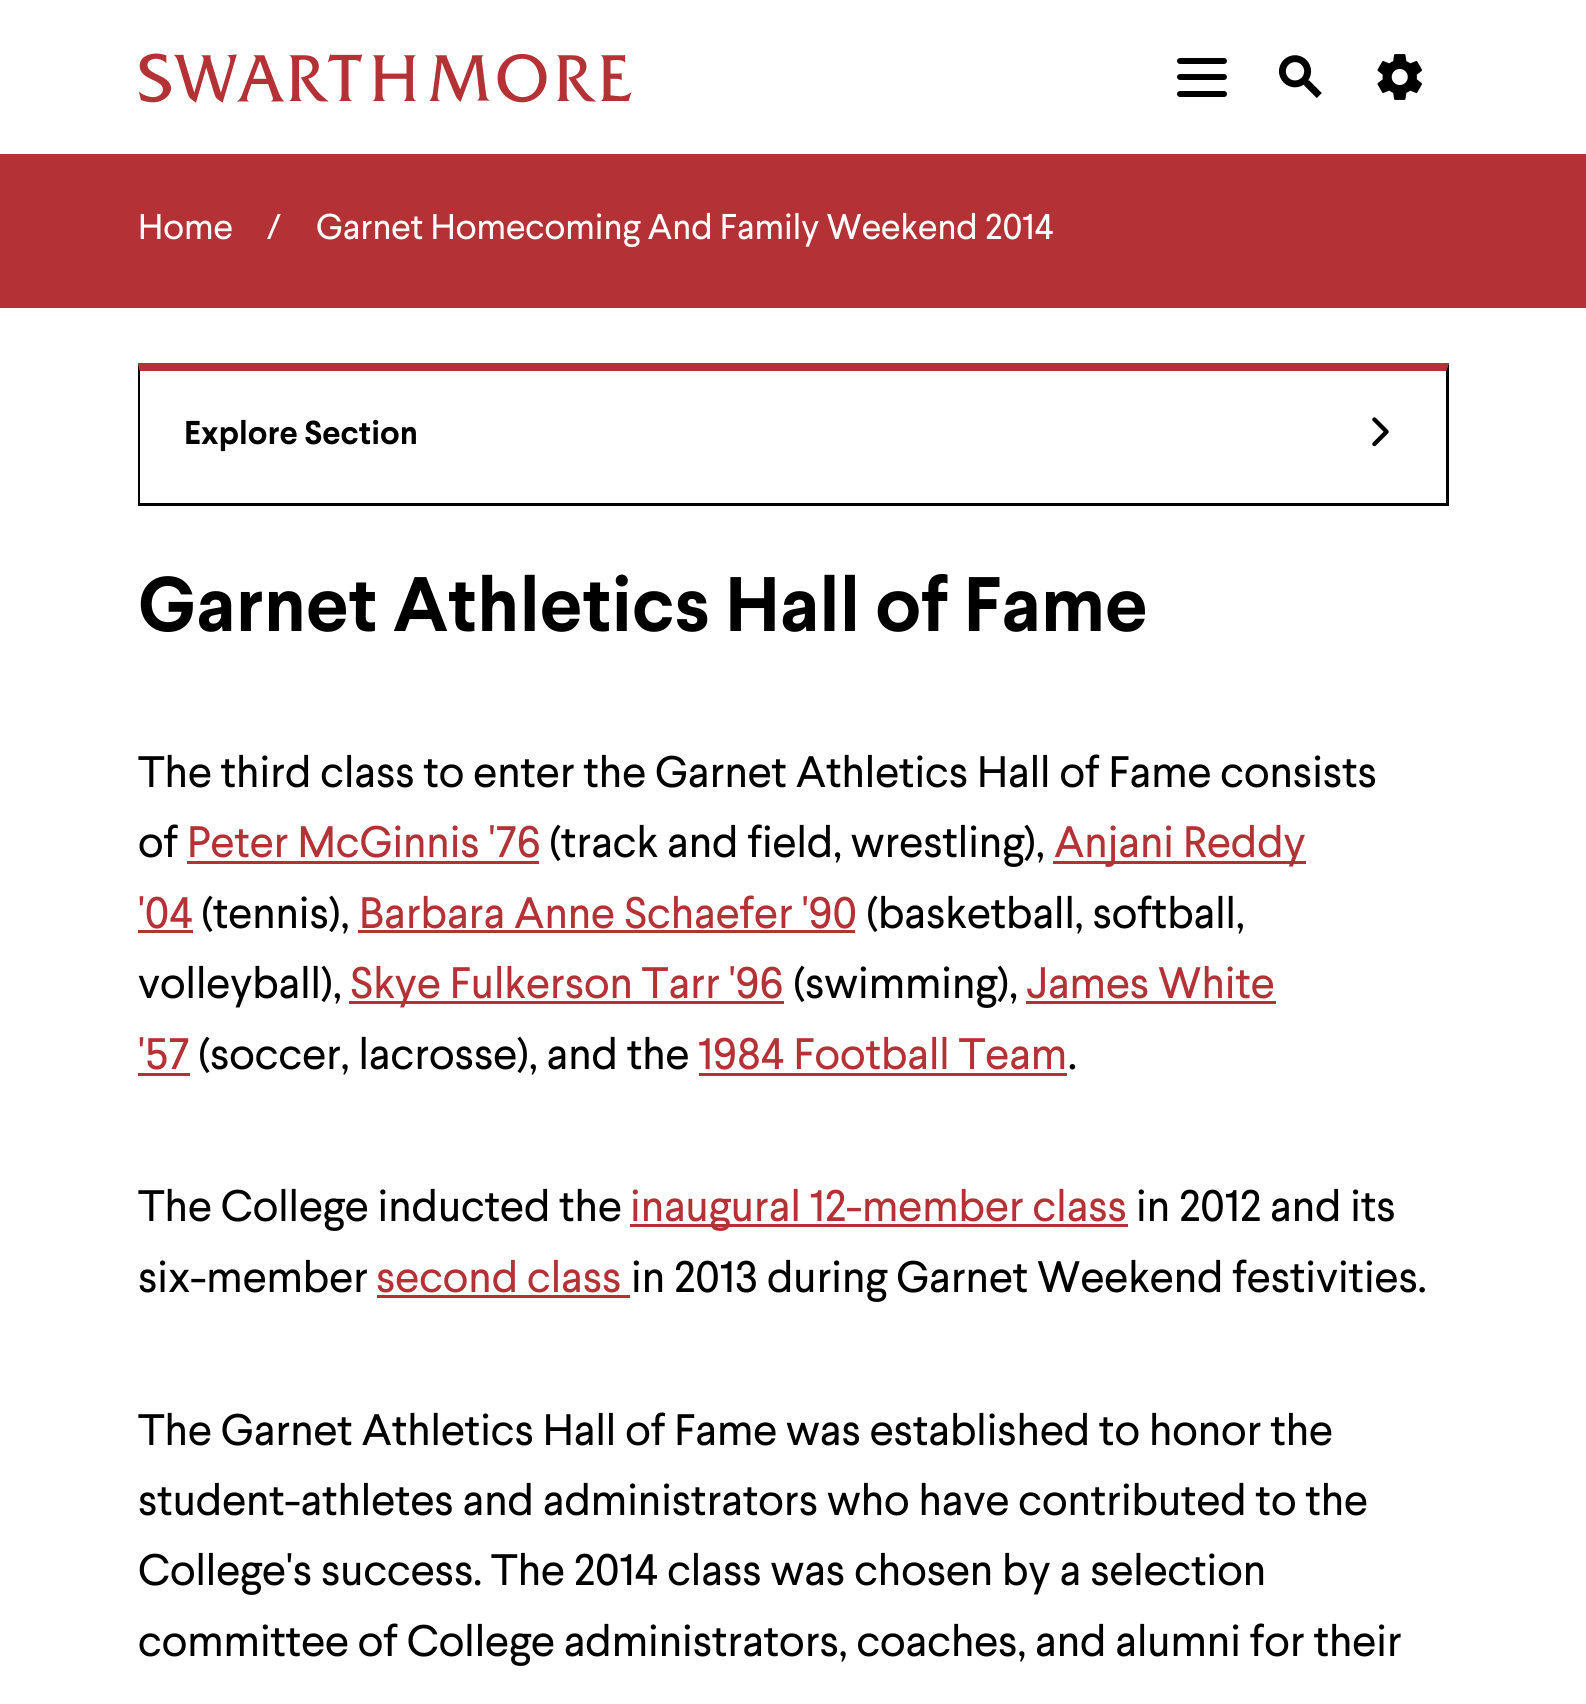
import math
import cairo

surface = cairo.ImageSurface(cairo.Format.RGB24, 1586, 1704)
ctx = cairo.Context(surface)
options = cairo.FontOptions()
options.set_hint_metrics(cairo.HintMetrics.OFF)
options.set_hint_style(cairo.HintStyle.NONE)
ctx.set_font_options(options)
ctx.set_miter_limit(4)


def ink(r, g, b):
    ctx.set_source_rgb(r / 255, g / 255, b / 255)


def write(x, y, s, family, size, color, bold=False, italic=False):
    ctx.select_font_face(family, cairo.FontSlant.ITALIC if italic else cairo.FontSlant.NORMAL, cairo.FontWeight.BOLD if bold else cairo.FontWeight.NORMAL)
    ctx.set_font_size(size)
    ink(*color)
    ctx.move_to(x, y)
    ctx.show_text(s)


def block(x, y, w, h, *color):
    ink(*color)
    ctx.rectangle(x, y, w, h)
    ctx.fill()


def round_path(x, y, w, h, r):
    ctx.new_sub_path()
    for i, (u, v) in enumerate([(x + w - r, y + h - r), (x + r, y + h - r), (x + r, y + r), (x + w - r, y + r)]):
        ctx.arc(u, v, r, i * math.pi / 2, (i + 1) * math.pi / 2)
    ctx.close_path()


def paste(path, x, y, w, h):
    ctx.save()
    ctx.set_source_surface(cairo.ImageSurface.create_from_png(path), x, y)
    ctx.rectangle(x, y, w, h)
    ctx.fill()
    ctx.restore()


s1 = dict(family="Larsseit", size=35.75, color=(255, 255, 255))
s2 = dict(family="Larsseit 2", size=33, color=(0, 0, 0))
s3 = dict(family="Larsseit 2", size=77, color=(0, 0, 0))
s4 = dict(family="Larsseit", size=44, color=(0, 0, 0))
s5 = dict(family="Larsseit", size=44, color=(180, 49, 53))

ink(255, 255, 255)
ctx.paint()
paste("pic1.png", 138, 53, 494, 50)
ink(0, 0, 0)
round_path(1177, 58, 50, 6, 3)
ctx.fill()
round_path(1177, 91, 50, 6, 3)
ctx.fill()
round_path(1177, 74, 50, 6, 3)
ctx.fill()
paste("pic2.png", 1279, 55, 43, 43)
paste("pic3.png", 1377, 54, 45, 46)
block(0, 154, 1586, 154, 180, 49, 53)
write(138, 239, "Home", **s1)
write(267, 239, "/", **s1)
write(316, 239, "Garnet Homecoming And Family Weekend 2014", **s1)
ink(180, 49, 53)
ctx.new_path()
ctx.move_to(138, 363)
ctx.line_to(1449, 363)
ctx.line_to(1446, 371)
ctx.line_to(140, 371)
ctx.close_path()
ctx.fill()
ink(0, 0, 0)
ctx.new_path()
ctx.move_to(1449, 363)
ctx.line_to(1449, 506)
ctx.line_to(1446, 503)
ctx.line_to(1446, 371)
ctx.close_path()
ctx.fill()
block(138, 503, 1311, 3, 0, 0, 0)
ctx.new_path()
ctx.move_to(138, 506)
ctx.line_to(138, 363)
ctx.line_to(140, 371)
ctx.line_to(140, 503)
ctx.close_path()
ctx.fill()
write(184, 444, "Explore Section", **s2)
paste("pic4.png", 1372, 417, 17, 30)
write(138, 631, "Garnet Athletics Hall of Fame", **s3)
write(138, 787, "The third class to enter the Garnet Athletics Hall of Fame consists", **s4)
write(138, 857, "of", **s4)
write(187, 857, "Peter McGinnis '76", **s5)
block(187, 861, 352, 3, 180, 49, 53)
write(549, 857, "(track and field, wrestling),", **s4)
block(1053, 861, 253, 3, 180, 49, 53)
write(1054, 857, "Anjani Reddy", **s5)
write(138, 928, "'04", **s5)
block(138, 930, 55, 3, 180, 49, 53)
write(201, 928, "(tennis),", **s4)
write(359, 928, "Barbara Anne Schaefer '90", **s5)
block(358, 930, 497, 3, 180, 49, 53)
write(866, 928, "(basketball, softball,", **s4)
write(138, 998, "volleyball),", **s4)
block(349, 1001, 435, 3, 180, 49, 53)
write(350, 998, "Skye Fulkerson Tarr '96", **s5)
write(793, 998, "(swimming),", **s4)
write(1026, 998, "James White", **s5)
block(1026, 1001, 250, 3, 180, 49, 53)
write(138, 1069, "'57", **s5)
block(138, 1073, 52, 3, 180, 49, 53)
write(198, 1069, "(soccer, lacrosse), and the", **s4)
write(698, 1069, "1984 Football Team", **s5)
block(699, 1073, 368, 3, 180, 49, 53)
write(1068, 1069, ".", **s4)
write(138, 1221, "The College inducted the", **s4)
block(630, 1224, 498, 3, 180, 49, 53)
write(630, 1221, "inaugural 12-member class", **s5)
write(1136, 1221, "in 2012 and its", **s4)
write(138, 1292, "six-member", **s4)
write(376, 1292, "second class", **s5)
block(377, 1295, 253, 3, 180, 49, 53)
write(631, 1292, "in 2013 during Garnet Weekend festivities.", **s4)
write(138, 1445, "The Garnet Athletics Hall of Fame was established to honor the", **s4)
write(138, 1515, "student-athletes and administrators who have contributed to the", **s4)
write(138, 1585, "College's success. The 2014 class was chosen by a selection", **s4)
write(138, 1656, "committee of College administrators, coaches, and alumni for their", **s4)
surface.write_to_png("screenshot.png")
